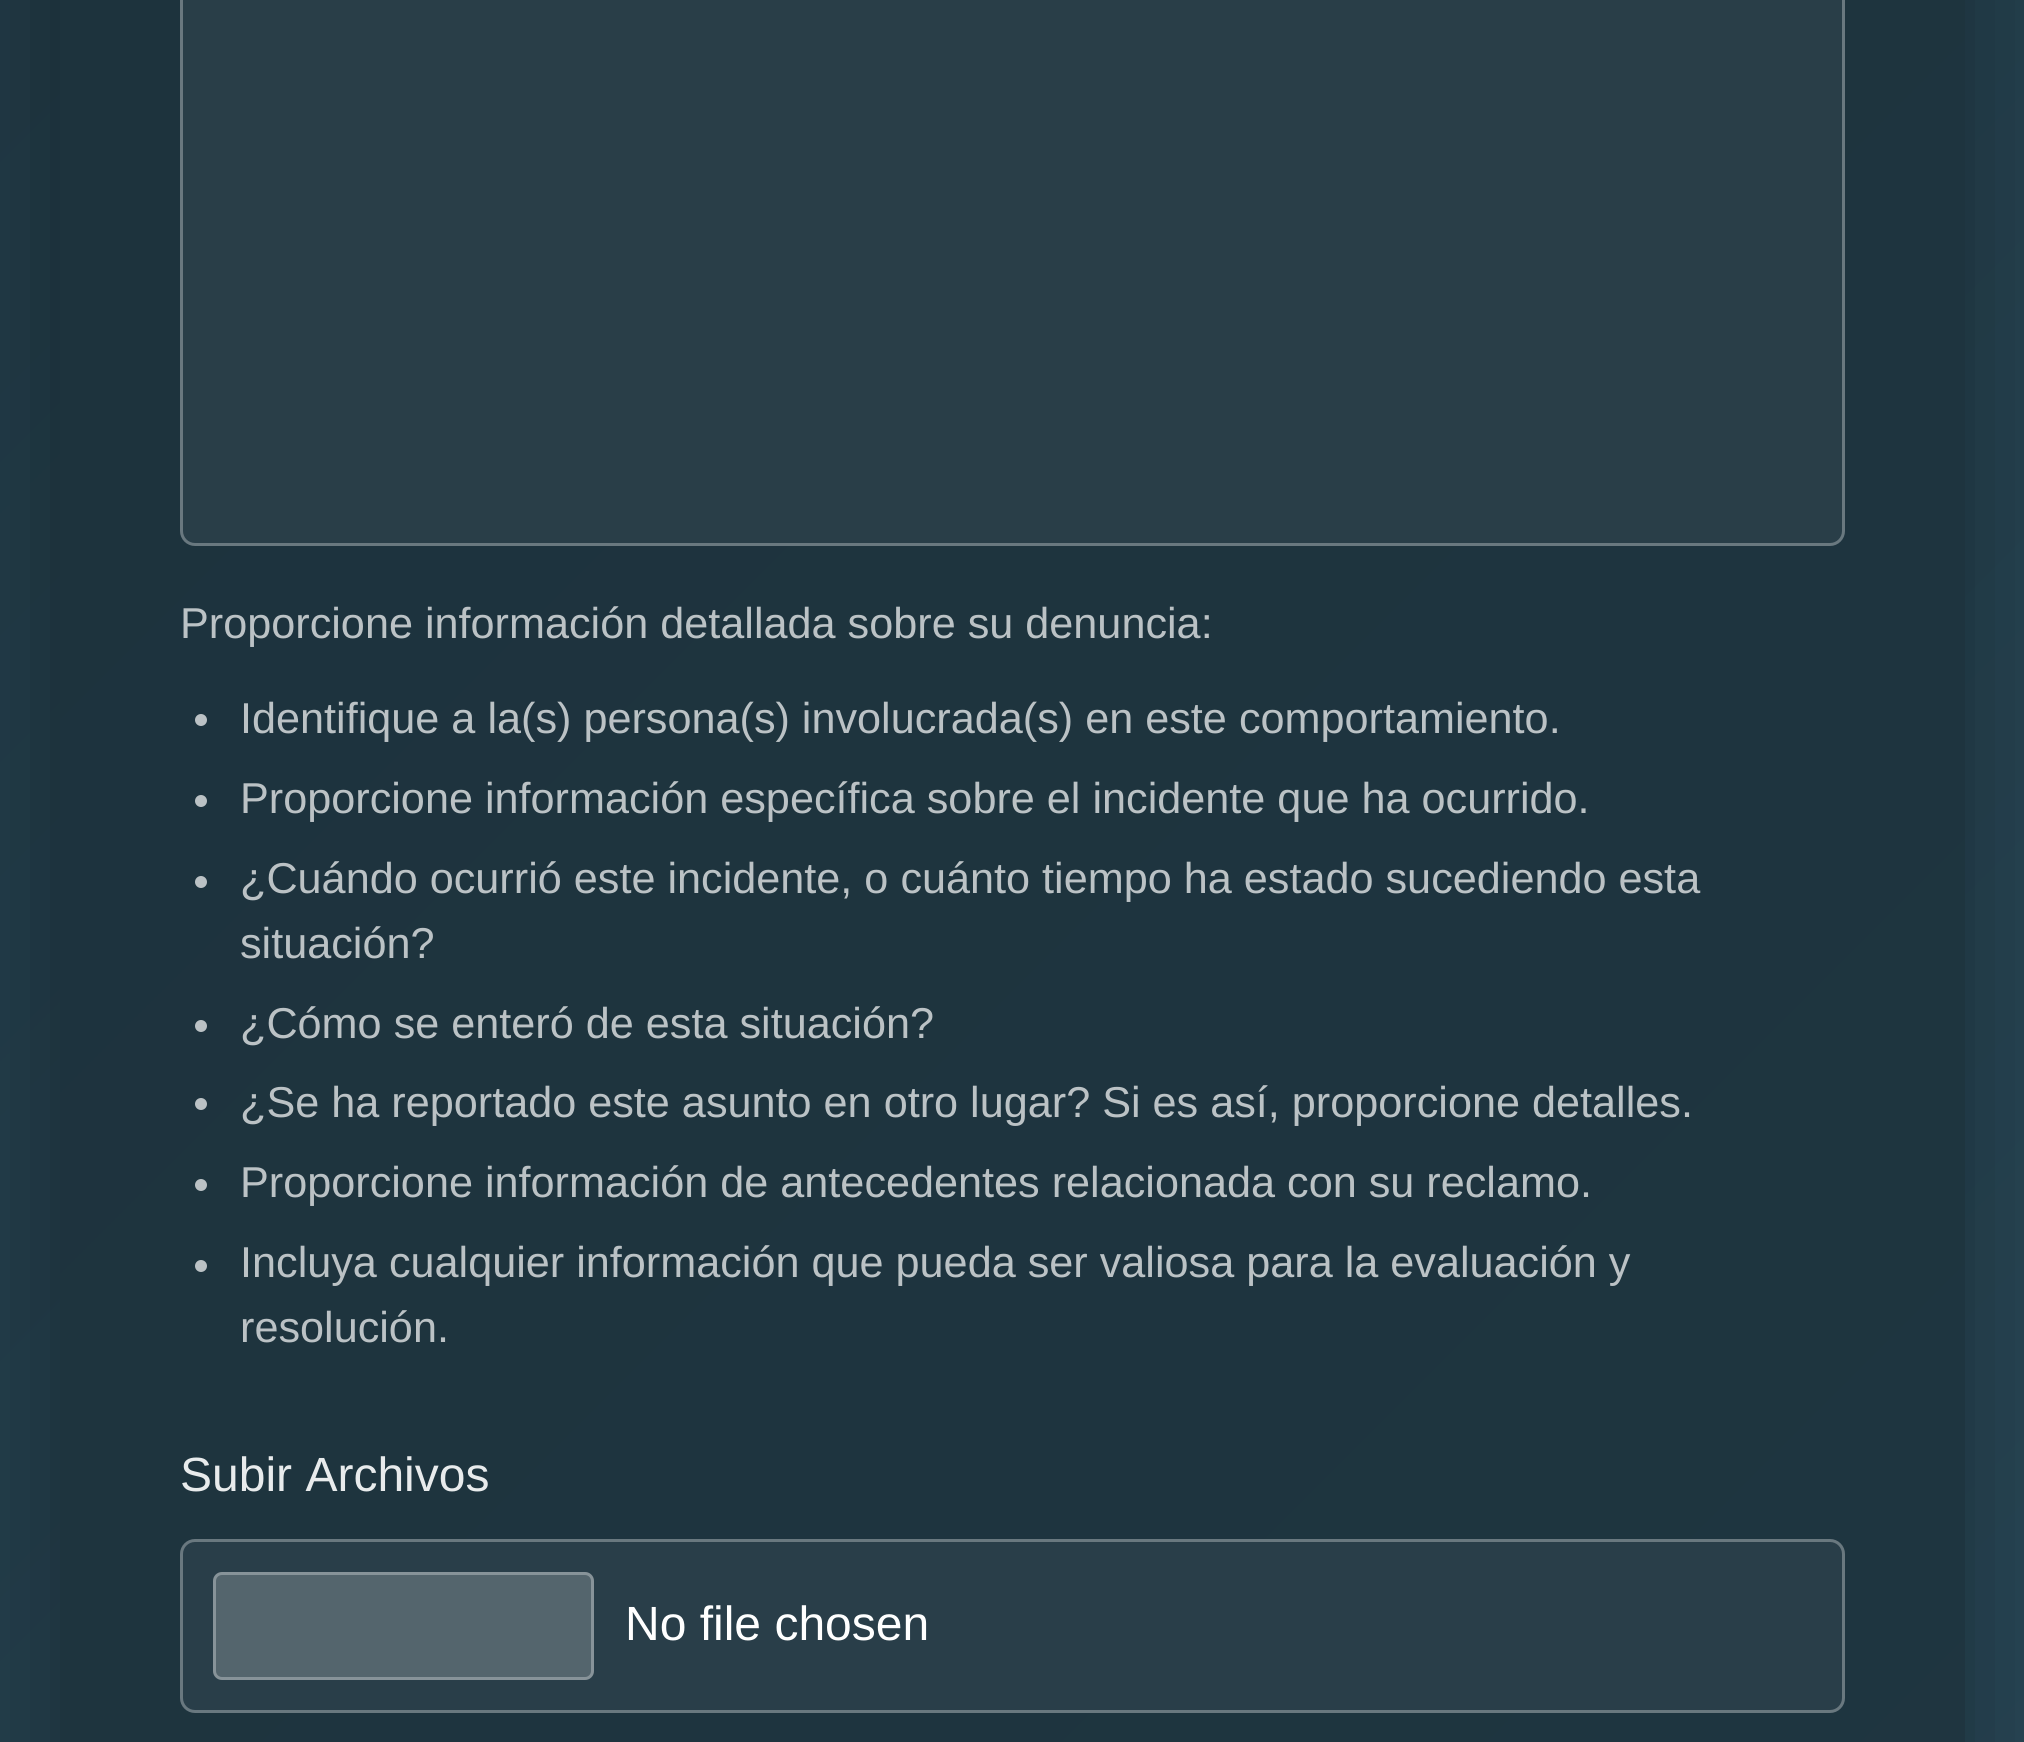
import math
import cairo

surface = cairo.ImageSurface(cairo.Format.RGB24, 2024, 1742)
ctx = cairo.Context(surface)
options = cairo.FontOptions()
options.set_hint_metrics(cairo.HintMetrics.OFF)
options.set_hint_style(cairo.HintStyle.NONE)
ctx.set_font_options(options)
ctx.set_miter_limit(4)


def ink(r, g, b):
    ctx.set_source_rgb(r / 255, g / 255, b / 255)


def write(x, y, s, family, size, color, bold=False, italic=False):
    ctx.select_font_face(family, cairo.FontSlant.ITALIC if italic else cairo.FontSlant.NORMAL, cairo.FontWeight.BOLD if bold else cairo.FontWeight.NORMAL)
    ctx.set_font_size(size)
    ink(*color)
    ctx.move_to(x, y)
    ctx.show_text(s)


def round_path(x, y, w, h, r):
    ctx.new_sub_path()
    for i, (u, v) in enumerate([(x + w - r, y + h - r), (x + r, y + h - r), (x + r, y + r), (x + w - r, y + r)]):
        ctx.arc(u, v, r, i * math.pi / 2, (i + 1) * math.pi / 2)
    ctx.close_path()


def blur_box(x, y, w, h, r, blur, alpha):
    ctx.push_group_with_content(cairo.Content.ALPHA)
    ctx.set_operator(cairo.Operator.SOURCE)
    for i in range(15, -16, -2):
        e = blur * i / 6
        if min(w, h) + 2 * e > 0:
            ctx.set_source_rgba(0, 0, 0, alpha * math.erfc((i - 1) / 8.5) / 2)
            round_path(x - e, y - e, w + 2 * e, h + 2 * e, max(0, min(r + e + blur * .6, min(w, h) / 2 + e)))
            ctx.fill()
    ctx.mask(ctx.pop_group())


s1 = dict(family="Liberation Sans", size=43.2, color=(187, 194, 197))
s2 = dict(family="Liberation Sans", size=48, color=(232, 235, 236))
s3 = dict(family="Liberation Sans", size=48, color=(255, 255, 255))

ink(255, 255, 255)
ctx.paint()
gradient = cairo.LinearGradient(-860, -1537, 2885, 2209)
gradient.add_color_stop_rgba(0, 0.11, 0.192, 0.231, 1)
gradient.add_color_stop_rgba(1, 0.165, 0.29, 0.353, 1)
ctx.set_source(gradient)
ctx.rectangle(0, 0, 2024, 1742)
ctx.fill()
gradient = cairo.LinearGradient(-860, -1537, 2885, 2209)
gradient.add_color_stop_rgba(0, 0.11, 0.192, 0.231, 1)
gradient.add_color_stop_rgba(1, 0.122, 0.212, 0.255, 1)
ctx.set_source(gradient)
ctx.rectangle(60, 0, 1905, 1742)
ctx.fill()
ctx.save()
ctx.set_fill_rule(cairo.FillRule.EVEN_ODD)
ctx.new_path()
ctx.move_to(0, 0)
ctx.line_to(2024, 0)
ctx.line_to(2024, 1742)
ctx.line_to(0, 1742)
ctx.close_path()
ctx.move_to(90, -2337)
ctx.line_to(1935, -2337)
ctx.curve_to(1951.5, -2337, 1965, -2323.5, 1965, -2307)
ctx.line_to(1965, 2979)
ctx.curve_to(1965, 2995.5, 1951.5, 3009, 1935, 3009)
ctx.line_to(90, 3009)
ctx.curve_to(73.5, 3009, 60, 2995.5, 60, 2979)
ctx.line_to(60, -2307)
ctx.curve_to(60, -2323.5, 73.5, -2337, 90, -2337)
ctx.close_path()
ctx.clip()
ink(0, 0, 0)
blur_box(60, -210, 1905, 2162, 30, 60, 0.3)
ctx.restore()
ink(41, 62, 72)
round_path(180, -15, 1665, 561, 15)
ctx.fill()
round_path(181.5, -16.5, 1662, 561, 13.5)
ctx.set_source_rgba(1, 1, 1, 0.3)
ctx.set_line_width(3)
ctx.stroke()
write(180, 638, "Proporcione información detallada sobre su denuncia:", **s1)
ctx.new_path()
ctx.arc(201, 720, 6, 0, 2 * math.pi)
ctx.fill()
write(240, 733, "Identifique a la(s) persona(s) involucrada(s) en este comportamiento.", **s1)
ctx.new_path()
ctx.arc(201, 801, 6, 0, 2 * math.pi)
ctx.fill()
write(240, 813, "Proporcione información específica sobre el incidente que ha ocurrido.", **s1)
ctx.new_path()
ctx.arc(201, 882, 6, 0, 2 * math.pi)
ctx.fill()
write(240, 893, "¿Cuándo ocurrió este incidente, o cuánto tiempo ha estado sucediendo esta", **s1)
write(240, 958, "situación?", **s1)
ctx.new_path()
ctx.arc(201, 1026, 6, 0, 2 * math.pi)
ctx.fill()
write(240, 1038, "¿Cómo se enteró de esta situación?", **s1)
ctx.new_path()
ctx.arc(201, 1104, 6, 0, 2 * math.pi)
ctx.fill()
write(240, 1117, "¿Se ha reportado este asunto en otro lugar? Si es así, proporcione detalles.", **s1)
ctx.new_path()
ctx.arc(201, 1185, 6, 0, 2 * math.pi)
ctx.fill()
write(240, 1197, "Proporcione información de antecedentes relacionada con su reclamo.", **s1)
ctx.new_path()
ctx.arc(201, 1266, 6, 0, 2 * math.pi)
ctx.fill()
write(240, 1277, "Incluya cualquier información que pueda ser valiosa para la evaluación y", **s1)
write(240, 1342, "resolución.", **s1)
write(180, 1491, "Subir Archivos", **s2)
ink(41, 62, 73)
round_path(180, 1539, 1665, 174, 15)
ctx.fill()
round_path(181.5, 1540.5, 1662, 171, 13.5)
ctx.set_source_rgba(1, 1, 1, 0.3)
ctx.stroke()
ink(84, 101, 109)
round_path(213, 1572, 381, 108, 9)
ctx.fill()
round_path(214.5, 1573.5, 378, 105, 7.5)
ctx.set_source_rgba(1, 1, 1, 0.3)
ctx.stroke()
write(625, 1640, "No file chosen", **s3)
surface.write_to_png("screenshot.png")
